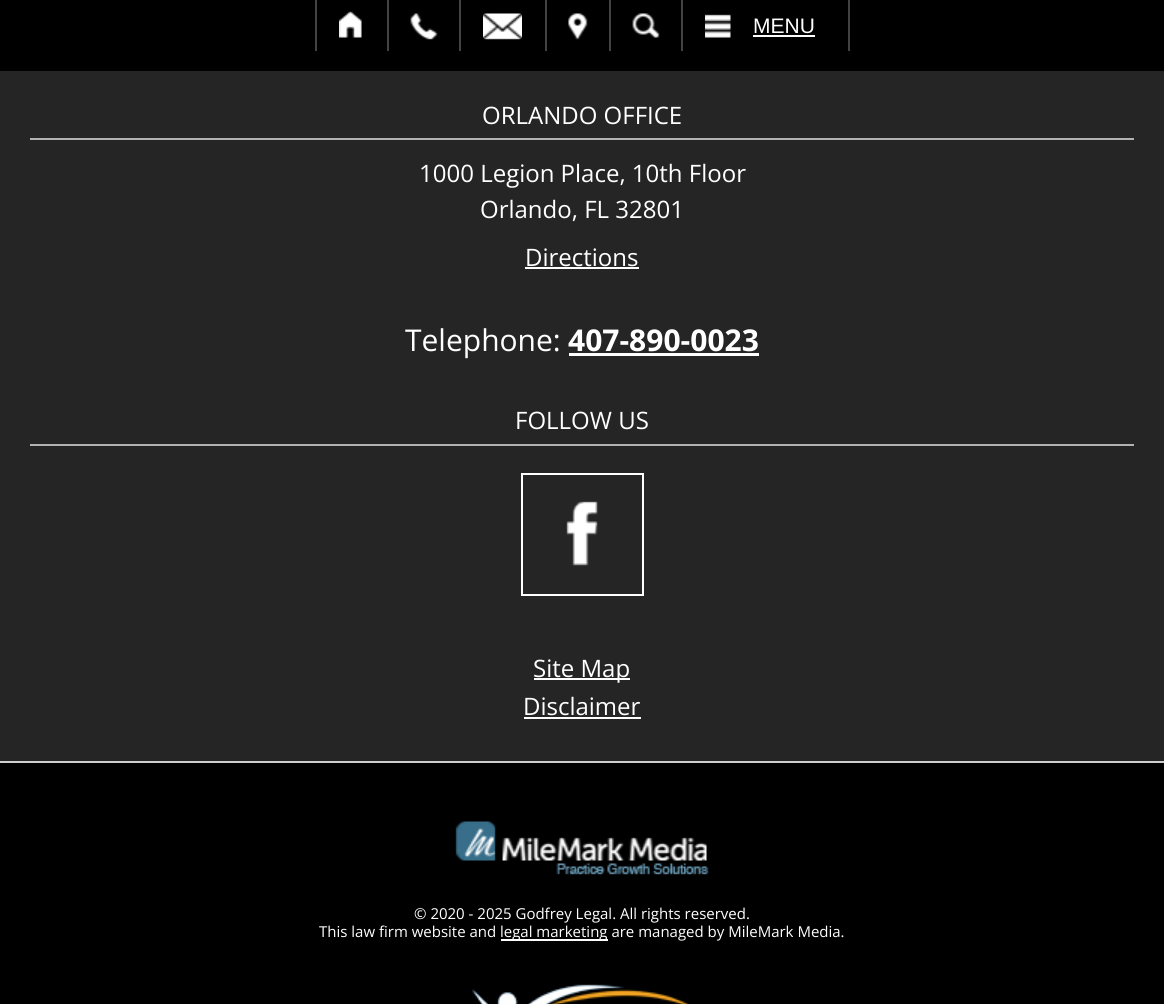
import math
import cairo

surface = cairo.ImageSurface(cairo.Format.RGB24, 1164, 1004)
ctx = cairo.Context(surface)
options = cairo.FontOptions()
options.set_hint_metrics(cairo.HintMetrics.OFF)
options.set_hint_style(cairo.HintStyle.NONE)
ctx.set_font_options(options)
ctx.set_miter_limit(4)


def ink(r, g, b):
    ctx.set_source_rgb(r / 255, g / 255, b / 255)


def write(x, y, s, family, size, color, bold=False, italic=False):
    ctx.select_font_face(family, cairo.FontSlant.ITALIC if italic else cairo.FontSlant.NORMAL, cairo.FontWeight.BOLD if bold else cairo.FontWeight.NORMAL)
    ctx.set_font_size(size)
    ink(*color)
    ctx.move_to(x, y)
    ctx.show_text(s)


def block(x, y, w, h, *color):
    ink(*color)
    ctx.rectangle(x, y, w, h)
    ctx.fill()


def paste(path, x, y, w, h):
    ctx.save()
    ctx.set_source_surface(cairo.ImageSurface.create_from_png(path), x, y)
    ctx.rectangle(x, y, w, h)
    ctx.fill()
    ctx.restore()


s1 = dict(family="Liberation Sans", size=21, color=(255, 255, 255))
s2 = dict(family="Open Sans", size=24, color=(255, 255, 255))
s3 = dict(family="Open Sans", size=30, color=(255, 255, 255))
s4 = dict(family="Open Sans", size=30, color=(255, 255, 255), bold=True)
s5 = dict(family="Open Sans", size=15, color=(255, 255, 255))

ink(0, 0, 0)
ctx.paint()
block(387, 0, 2, 51, 69, 65, 65)
block(315, 0, 2, 51, 69, 65, 65)
paste("pic1.png", 339, 11, 23, 27)
block(459, 0, 2, 51, 69, 65, 65)
paste("pic2.png", 410, 13, 28, 27)
block(545, 0, 2, 51, 69, 65, 65)
paste("pic3.png", 483, 13, 39, 27)
block(609, 0, 2, 51, 69, 65, 65)
paste("pic4.png", 568, 13, 20, 27)
block(681, 0, 2, 51, 69, 65, 65)
paste("pic5.png", 632, 13, 28, 25)
block(848, 0, 2, 51, 69, 65, 65)
paste("pic6.png", 705, 14, 26, 24)
write(753, 33, "MENU", **s1)
block(753, 35, 62, 2, 255, 255, 255)
block(0, 71, 1164, 690, 37, 37, 37)
block(30, 138, 1104, 2, 178, 178, 178)
write(482, 124, "ORLANDO OFFICE", **s2)
write(419, 182, "1000 Legion Place, 10th Floor", **s2)
write(480, 218, "Orlando, FL 32801", **s2)
write(525, 266, "Directions", **s2)
block(525, 267, 114, 2, 255, 255, 255)
write(405, 351, "Telephone:", **s3)
write(568, 351, "407-890-0023", **s4)
block(569, 353, 190, 3, 255, 255, 255)
block(30, 444, 1104, 2, 178, 178, 178)
write(515, 429, "FOLLOW US", **s2)
ctx.rectangle(522, 474, 121, 121)
ctx.stroke()
paste("pic7.png", 566, 501, 32, 65)
block(534, 678, 96, 2, 255, 255, 255)
write(533, 677, "Site Map", **s2)
write(523, 715, "Disclaimer", **s2)
block(524, 717, 117, 2, 255, 255, 255)
block(0, 761, 1164, 2, 206, 206, 206)
paste("pic8.png", 455, 821, 254, 54)
write(414, 919, "© 2020 - 2025 Godfrey Legal. All rights reserved.", **s5)
write(319, 937, "This law firm website and", **s5)
block(501, 939, 107, 2, 255, 255, 255)
write(500, 937, "legal marketing are managed by MileMark Media.", **s5)
paste("pic9.png", 472, 984, 217, 20)
surface.write_to_png("screenshot.png")
